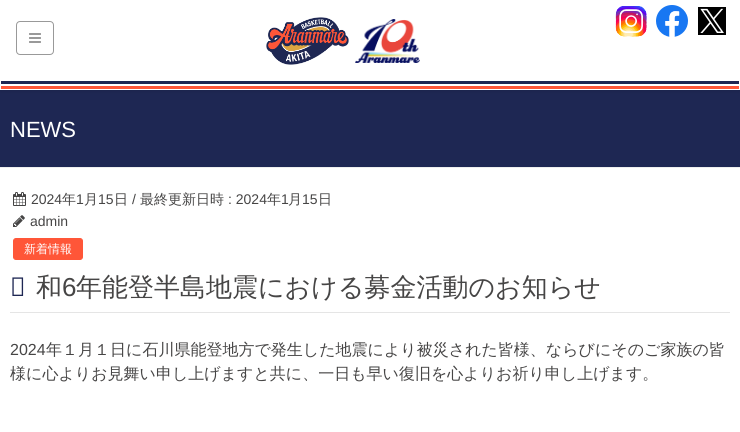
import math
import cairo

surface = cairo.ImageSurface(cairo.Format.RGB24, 740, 432)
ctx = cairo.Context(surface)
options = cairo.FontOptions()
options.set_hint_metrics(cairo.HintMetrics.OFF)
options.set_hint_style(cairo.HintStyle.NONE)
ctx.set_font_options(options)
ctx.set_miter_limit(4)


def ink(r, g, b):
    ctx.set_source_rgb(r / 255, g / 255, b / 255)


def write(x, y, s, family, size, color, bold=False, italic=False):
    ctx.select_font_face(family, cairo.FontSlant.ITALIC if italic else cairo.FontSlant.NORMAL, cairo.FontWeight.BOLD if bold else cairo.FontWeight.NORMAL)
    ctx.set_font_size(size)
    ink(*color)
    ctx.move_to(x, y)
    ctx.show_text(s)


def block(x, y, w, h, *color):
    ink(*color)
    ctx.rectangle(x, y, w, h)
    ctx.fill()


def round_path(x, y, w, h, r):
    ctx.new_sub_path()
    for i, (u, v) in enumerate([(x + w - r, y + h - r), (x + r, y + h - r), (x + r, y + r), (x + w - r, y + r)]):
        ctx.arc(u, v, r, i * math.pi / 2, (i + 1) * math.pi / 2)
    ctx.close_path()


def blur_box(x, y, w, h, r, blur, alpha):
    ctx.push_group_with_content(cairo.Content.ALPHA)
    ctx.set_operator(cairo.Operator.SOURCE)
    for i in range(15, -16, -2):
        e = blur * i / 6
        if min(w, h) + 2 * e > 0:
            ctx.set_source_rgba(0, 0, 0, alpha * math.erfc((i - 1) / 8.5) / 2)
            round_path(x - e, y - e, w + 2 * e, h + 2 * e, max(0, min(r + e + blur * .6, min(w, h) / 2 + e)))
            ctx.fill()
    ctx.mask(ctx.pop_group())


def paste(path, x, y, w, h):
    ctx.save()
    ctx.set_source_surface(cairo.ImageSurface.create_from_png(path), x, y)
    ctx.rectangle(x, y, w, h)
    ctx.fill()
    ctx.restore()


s1 = dict(family="Liberation Sans", size=22, color=(255, 255, 255))
s2 = dict(family="Liberation Sans", size=14, color=(70, 69, 69))
s3 = dict(family="WenQuanYi Zen Hei Medium", size=14, color=(70, 69, 69))
s4 = dict(family="WenQuanYi Zen Hei Medium", size=12, color=(255, 255, 255))
s5 = dict(family="Noto Sans Medium", size=26, color=(30, 39, 83))
s6 = dict(family="WenQuanYi Zen Hei Medium", size=26, color=(70, 69, 69))
s7 = dict(family="Liberation Sans", size=26, color=(70, 69, 69))
s8 = dict(family="Liberation Sans", size=16, color=(70, 69, 69))
s9 = dict(family="WenQuanYi Zen Hei Medium", size=16, color=(70, 69, 69))

ink(255, 255, 255)
ctx.paint()
block(0, 90, 740, 77, 30, 39, 83)
ink(0, 0, 0)
blur_box(0, 1, 740, 90, 0, 1.5, 0.1)
block(0, 0, 740, 90, 255, 255, 255)
block(1, 86, 738, 3, 255, 86, 56)
block(1, 81, 738, 3, 30, 39, 83)
round_path(16.5, 21.5, 37, 33, 3.5)
ink(153, 153, 153)
ctx.set_line_width(1)
ctx.stroke()
paste("pic1.png", 29, 33, 12, 10)
paste("pic2.png", 266, 17, 83, 48)
paste("pic3.png", 355, 19, 65, 44)
paste("pic4.png", 615, 6, 32, 31)
paste("pic5.png", 656, 5, 32, 32)
paste("pic6.png", 698, 7, 28, 28)
block(0, 167, 740, 1, 238, 238, 238)
write(10, 137, "NEWS", **s1)
block(10, 312, 720, 1, 229, 229, 229)
paste("pic7.png", 13, 192, 13, 14)
write(31, 204, "2024", **s2)
write(62, 204, "年", **s3)
write(76, 204, "1", **s2)
write(84, 204, "月", **s3)
write(98, 204, "15", **s2)
write(114, 204, "日", **s3)
write(132, 204, "/", **s2)
write(140, 204, "最終更新日時", **s3)
write(228, 204, ": 2024", **s2)
write(267, 204, "年", **s3)
write(281, 204, "1", **s2)
write(288, 204, "月", **s3)
write(302, 204, "15", **s2)
write(318, 204, "日", **s3)
paste("pic8.png", 13, 215, 12, 12)
write(30, 226, "admin", **s2)
ink(255, 86, 56)
round_path(13.5, 238.5, 69, 21, 2.5)
ctx.fill_preserve()
ctx.stroke()
write(24, 253, "新着情報", **s4)
write(10, 296, "令", **s5)
write(36, 296, "和", **s6)
write(62, 296, "6", **s7)
write(76, 296, "年能登半島地震における募金活動のお知らせ", **s6)
write(10, 355, "2024", **s8)
write(46, 355, "年１月１日に石川県能登地方で発生した地震により被災された皆様、ならびにそのご家族の皆", **s9)
write(10, 379, "様に心よりお見舞い申し上げますと共に、一日も早い復旧を心よりお祈り申し上げます。", **s9)
surface.write_to_png("screenshot.png")
